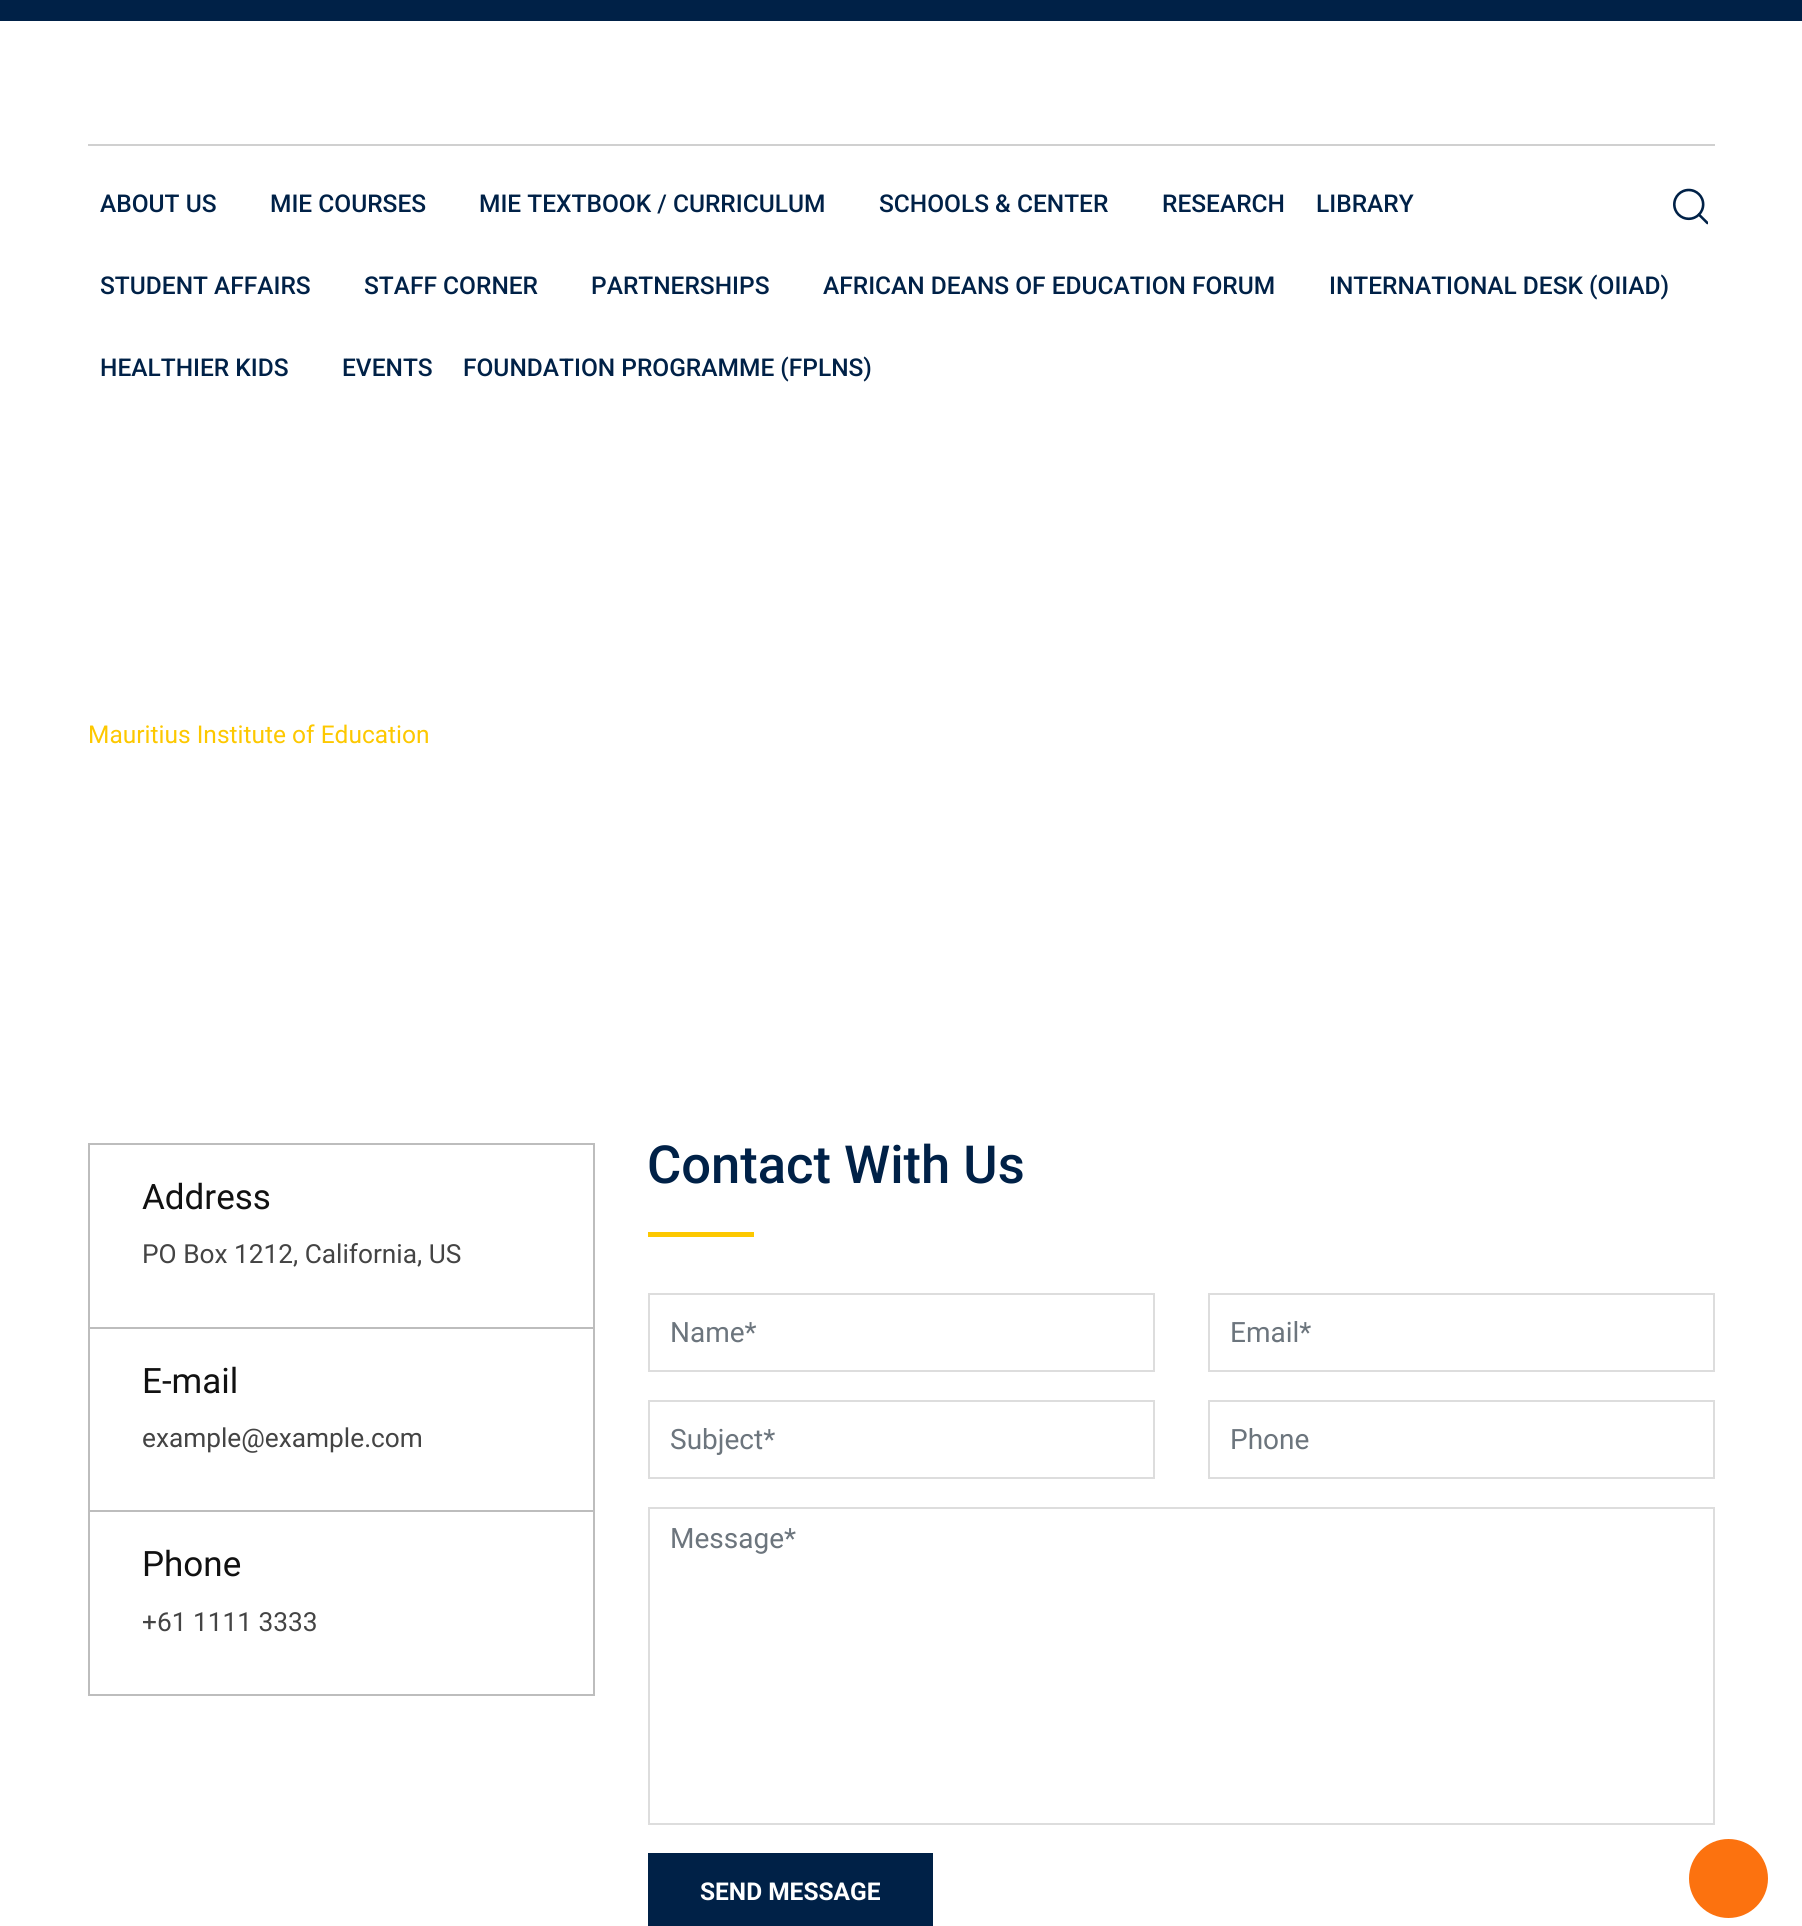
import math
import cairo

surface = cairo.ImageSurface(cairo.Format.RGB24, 1802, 1926)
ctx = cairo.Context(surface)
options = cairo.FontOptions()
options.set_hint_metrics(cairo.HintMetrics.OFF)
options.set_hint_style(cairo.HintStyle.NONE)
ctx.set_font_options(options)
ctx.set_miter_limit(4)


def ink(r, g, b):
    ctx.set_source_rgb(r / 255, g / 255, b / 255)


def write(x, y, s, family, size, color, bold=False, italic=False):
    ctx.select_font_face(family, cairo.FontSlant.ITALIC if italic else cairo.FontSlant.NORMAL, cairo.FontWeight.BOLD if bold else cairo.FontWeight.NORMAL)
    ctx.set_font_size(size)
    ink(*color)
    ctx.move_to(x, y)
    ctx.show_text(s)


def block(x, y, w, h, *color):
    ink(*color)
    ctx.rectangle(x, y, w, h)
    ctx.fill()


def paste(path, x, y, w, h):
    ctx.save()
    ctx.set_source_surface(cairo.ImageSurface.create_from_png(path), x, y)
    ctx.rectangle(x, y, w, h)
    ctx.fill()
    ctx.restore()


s1 = dict(family="Roboto Medium", size=24.5, color=(0, 33, 71))
s2 = dict(family="Roboto", size=24.5, color=(253, 200, 0))
s3 = dict(family="Roboto", size=35, color=(17, 17, 17))
s4 = dict(family="Roboto", size=26.25, color=(68, 68, 68))
s5 = dict(family="Roboto Medium", size=52.5, color=(0, 33, 71))
s6 = dict(family="Roboto", size=28, color=(108, 117, 125))
s7 = dict(family="Roboto", size=24.5, color=(255, 255, 255), bold=True)

ink(255, 255, 255)
ctx.paint()
block(0, 0, 1802, 21, 0, 33, 71)
block(88, 144, 1627, 2, 208, 208, 208)
write(100, 212, "ABOUT US", **s1)
write(270, 212, "MIE COURSES", **s1)
write(479, 212, "MIE TEXTBOOK / CURRICULUM", **s1)
write(879, 212, "SCHOOLS & CENTER", **s1)
write(1162, 212, "RESEARCH", **s1)
write(1316, 212, "LIBRARY", **s1)
write(100, 294, "STUDENT AFFAIRS", **s1)
write(364, 294, "STAFF CORNER", **s1)
write(591, 294, "PARTNERSHIPS", **s1)
write(823, 294, "AFRICAN DEANS OF EDUCATION FORUM", **s1)
write(1329, 294, "INTERNATIONAL DESK (OIIAD)", **s1)
write(100, 376, "HEALTHIER KIDS", **s1)
write(342, 376, "EVENTS", **s1)
write(463, 376, "FOUNDATION PROGRAMME (FPLNS)", **s1)
paste("pic1.png", 1673, 188, 35, 37)
write(88, 743, "Mauritius Institute of Education", **s2)
ctx.rectangle(89, 1144, 505, 551)
ink(189, 189, 189)
ctx.stroke()
block(89, 1327, 504, 2, 189, 189, 189)
write(142, 1209, "Address", **s3)
write(142, 1263, "PO Box 1212, California, US", **s4)
block(89, 1510, 504, 2, 189, 189, 189)
write(142, 1393, "E-mail", **s3)
write(142, 1447, "example@example.com", **s4)
write(142, 1576, "Phone", **s3)
write(142, 1631, "+61 1111 3333", **s4)
write(647, 1183, "Contact With Us", **s5)
block(648, 1232, 106, 5, 253, 200, 0)
ctx.rectangle(649, 1294, 505, 77)
ink(221, 221, 221)
ctx.stroke()
write(670, 1342, "Name*", **s6)
ctx.rectangle(1209, 1294, 505, 77)
ink(221, 221, 221)
ctx.stroke()
write(1230, 1342, "Email*", **s6)
ctx.rectangle(649, 1401, 505, 77)
ink(221, 221, 221)
ctx.stroke()
write(670, 1449, "Subject*", **s6)
ctx.rectangle(1209, 1401, 505, 77)
ink(221, 221, 221)
ctx.stroke()
write(1230, 1449, "Phone", **s6)
ctx.rectangle(649, 1508, 1065, 316)
ink(221, 221, 221)
ctx.stroke()
write(670, 1548, "Message*", **s6)
block(648, 1853, 285, 73, 0, 33, 71)
write(700, 1900, "SEND MESSAGE", **s7)
ink(252, 114, 15)
ctx.new_path()
ctx.arc(1728.5, 1878.5, 39.5, 0, 2 * math.pi)
ctx.fill()
surface.write_to_png("screenshot.png")
